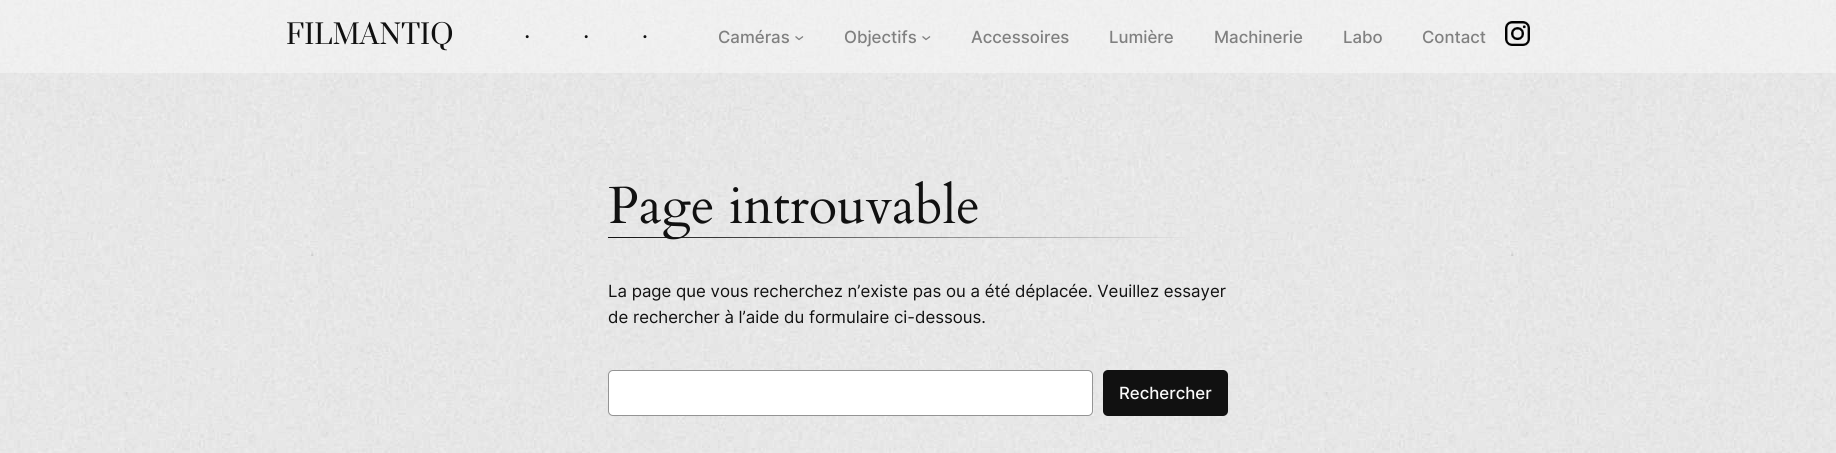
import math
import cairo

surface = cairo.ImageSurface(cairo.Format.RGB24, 1836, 453)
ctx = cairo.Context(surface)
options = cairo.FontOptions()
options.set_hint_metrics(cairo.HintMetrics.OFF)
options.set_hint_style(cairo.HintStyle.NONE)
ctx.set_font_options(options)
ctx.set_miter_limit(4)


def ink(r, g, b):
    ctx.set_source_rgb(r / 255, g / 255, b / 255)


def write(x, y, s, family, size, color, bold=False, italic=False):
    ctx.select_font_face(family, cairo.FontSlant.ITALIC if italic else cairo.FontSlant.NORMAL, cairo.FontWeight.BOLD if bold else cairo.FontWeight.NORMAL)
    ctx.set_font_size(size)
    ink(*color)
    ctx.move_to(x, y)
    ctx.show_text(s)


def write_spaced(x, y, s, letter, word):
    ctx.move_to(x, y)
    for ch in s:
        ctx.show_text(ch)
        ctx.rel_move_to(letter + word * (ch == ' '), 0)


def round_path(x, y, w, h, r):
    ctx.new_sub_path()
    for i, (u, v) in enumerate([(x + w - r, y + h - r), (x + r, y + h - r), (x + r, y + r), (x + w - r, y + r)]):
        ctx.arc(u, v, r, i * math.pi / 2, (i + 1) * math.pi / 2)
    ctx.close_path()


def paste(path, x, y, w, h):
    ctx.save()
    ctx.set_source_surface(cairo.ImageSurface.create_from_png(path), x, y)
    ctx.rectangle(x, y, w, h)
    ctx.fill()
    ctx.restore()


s1 = dict(family="Prata", size=27, color=(17, 17, 17))
s2 = dict(family="Inter Medium", size=16.8, color=(128, 128, 128))
s3 = dict(family="Inter", size=16.8, color=(17, 17, 17))
s4 = dict(family="Inter Medium", size=16.8, color=(249, 249, 249))

ink(255, 255, 255)
ctx.paint()
paste("pic1.png", 0, 0, 1836, 453)
ctx.set_source_rgba(0.98, 0.98, 0.98, 0.49)
ctx.rectangle(0, 0, 1836, 73)
ctx.fill()
write(286, 44, "FILMANTIQ", **s1)
ctx.select_font_face("Liberation Serif")
ctx.set_font_size(25.25)
write_spaced(523, 45, "···", 50.5, 0)
write(718, 43, "Caméras", **s2)
ctx.new_path()
ctx.move_to(795.5, 36.5)
ctx.line_to(799, 39.5)
ctx.line_to(803, 36.5)
ctx.set_source_rgba(0.067, 0.067, 0.067, 0.5)
ctx.set_line_width(1.3)
ctx.stroke()
write(844, 43, "Objectifs", **s2)
ctx.new_path()
ctx.move_to(922.5, 36.5)
ctx.line_to(926, 39.5)
ctx.line_to(930, 36.5)
ctx.set_source_rgba(0.067, 0.067, 0.067, 0.5)
ctx.stroke()
write(971, 43, "Accessoires", **s2)
write(1109, 43, "Lumière", **s2)
write(1214, 43, "Machinerie", **s2)
write(1343, 43, "Labo", **s2)
write(1422, 43, "Contact", **s2)
paste("pic2.png", 1505, 21, 25, 25)
paste("pic3.png", 608, 237, 577, 1)
paste("pic4.png", 609, 181, 369, 59)
write(608, 297, "La page que vous recherchez n’existe pas ou a été déplacée. Veuillez essayer", **s3)
write(608, 323, "de rechercher à l’aide du formulaire ci-dessous.", **s3)
ink(255, 255, 255)
round_path(608.5, 370.5, 484, 45, 4.5)
ctx.fill_preserve()
ink(148, 148, 148)
ctx.set_line_width(1)
ctx.stroke()
ink(17, 17, 17)
round_path(1103, 370, 125, 46, 5)
ctx.fill()
write(1119, 399, "Rechercher", **s4)
surface.write_to_png("screenshot.png")
